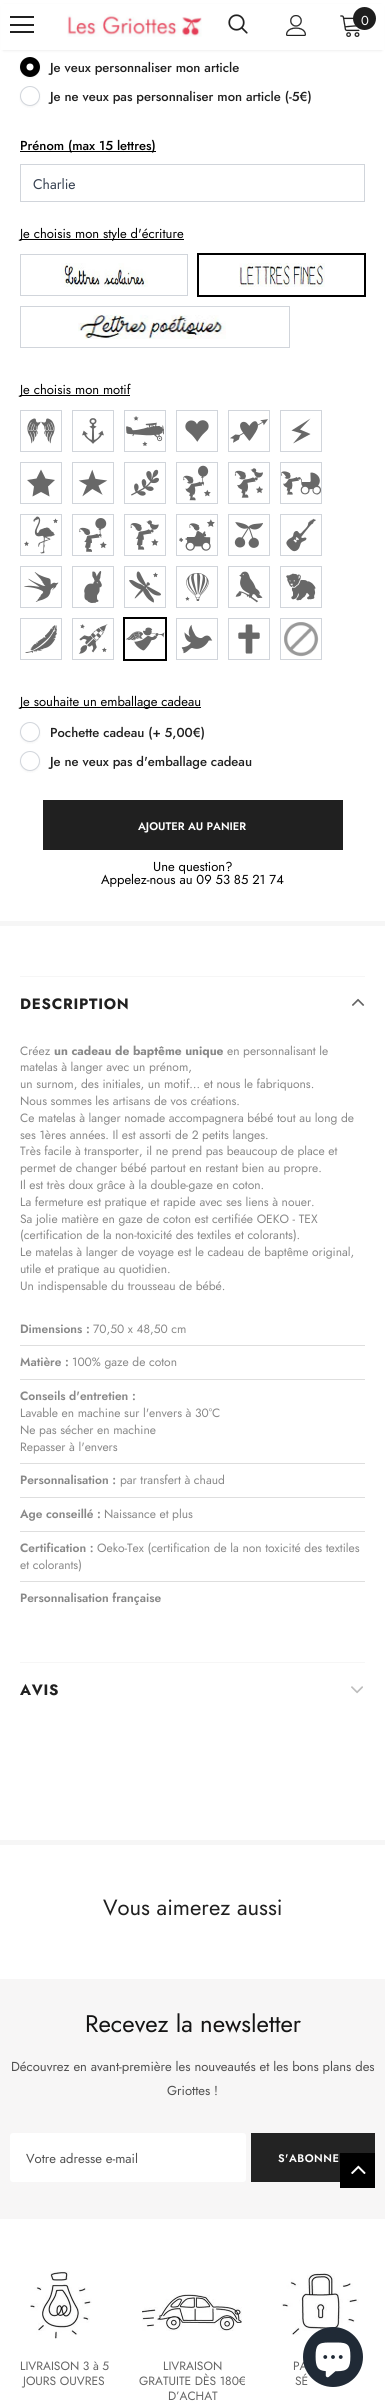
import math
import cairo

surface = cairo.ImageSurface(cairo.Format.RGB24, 385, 2408)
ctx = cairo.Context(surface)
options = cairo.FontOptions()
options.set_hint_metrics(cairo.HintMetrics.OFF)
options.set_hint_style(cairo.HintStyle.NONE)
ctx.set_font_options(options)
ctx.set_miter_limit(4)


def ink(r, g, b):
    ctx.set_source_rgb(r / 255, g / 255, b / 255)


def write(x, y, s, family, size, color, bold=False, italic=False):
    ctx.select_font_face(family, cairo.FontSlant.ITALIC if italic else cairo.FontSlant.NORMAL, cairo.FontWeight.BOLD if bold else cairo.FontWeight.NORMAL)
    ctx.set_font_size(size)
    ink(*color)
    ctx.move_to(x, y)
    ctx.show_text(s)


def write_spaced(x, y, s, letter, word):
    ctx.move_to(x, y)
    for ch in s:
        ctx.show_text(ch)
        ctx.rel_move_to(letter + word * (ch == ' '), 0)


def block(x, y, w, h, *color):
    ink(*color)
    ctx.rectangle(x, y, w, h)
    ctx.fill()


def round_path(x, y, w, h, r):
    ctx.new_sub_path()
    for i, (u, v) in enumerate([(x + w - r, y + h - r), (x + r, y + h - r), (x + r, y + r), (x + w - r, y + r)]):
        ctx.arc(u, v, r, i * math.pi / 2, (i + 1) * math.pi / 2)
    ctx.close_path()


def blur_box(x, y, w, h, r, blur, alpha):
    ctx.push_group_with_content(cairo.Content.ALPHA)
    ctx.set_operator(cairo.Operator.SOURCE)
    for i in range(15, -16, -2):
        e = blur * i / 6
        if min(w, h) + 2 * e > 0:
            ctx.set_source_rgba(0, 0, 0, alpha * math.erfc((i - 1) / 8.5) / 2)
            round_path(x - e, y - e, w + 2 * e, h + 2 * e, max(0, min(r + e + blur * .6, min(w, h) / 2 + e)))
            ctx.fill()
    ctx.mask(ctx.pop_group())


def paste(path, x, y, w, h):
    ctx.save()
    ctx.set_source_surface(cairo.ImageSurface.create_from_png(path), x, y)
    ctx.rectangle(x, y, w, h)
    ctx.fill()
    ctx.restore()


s1 = dict(family="Jost", size=13, color=(255, 255, 255))
s2 = dict(family="Jost Medium", size=13, color=(32, 32, 32))
s3 = dict(family="Jost Medium", size=13, color=(0, 0, 0))
s4 = dict(family="Jost", size=14, color=(55, 65, 81))
s5 = dict(family="Jost", size=13, color=(0, 0, 0))
s6 = dict(family="Jost SemiBold", size=11, color=(255, 255, 255))
s7 = dict(family="Jost", size=12, color=(136, 136, 136))
s8 = dict(family="Jost", size=12, color=(136, 136, 136), bold=True)
s9 = dict(family="Jost SemiBold", size=12, color=(136, 136, 136))
s10 = dict(family="Jost", size=22, color=(32, 32, 32))
s11 = dict(family="Jost", size=24, color=(20, 20, 20))
s12 = dict(family="Jost", size=13, color=(80, 80, 80))
s13 = dict(family="Jost", size=12, color=(100, 100, 100))

ink(255, 255, 255)
ctx.paint()
ink(0, 0, 0)
blur_box(3, 6, 379, 44, 0, 1.5, 0.12)
block(1, 4, 383, 46, 255, 255, 255)
block(10, 16, 24, 2, 32, 32, 32)
block(10, 24, 24, 2, 32, 32, 32)
block(10, 31, 24, 2, 32, 32, 32)
paste("pic1.png", 67, 14, 135, 23)
paste("pic2.png", 228, 14, 20, 20)
paste("pic3.png", 286, 15, 20, 21)
paste("pic4.png", 340, 15, 20, 22)
ink(30, 30, 30)
ctx.arc(364.5, 18.5, 11.5, 0, 2 * math.pi)
ctx.fill()
write(361, 25, "0", **s1)
ink(0, 0, 0)
blur_box(20, 58, 20, 20, 10, 1, 0.05)
ink(0, 0, 0)
ctx.arc(30, 67, 10, 0, 2 * math.pi)
ctx.fill()
ink(255, 255, 255)
ctx.arc(30, 67, 3.5, 0, 2 * math.pi)
ctx.fill()
write(50, 72, "Je veux personnaliser mon article", **s2)
ink(0, 0, 0)
blur_box(20, 87, 20, 20, 10, 1, 0.05)
ink(255, 255, 255)
ctx.arc(30, 96, 9.5, 0, 2 * math.pi)
ctx.fill_preserve()
ink(209, 213, 219)
ctx.set_line_width(1)
ctx.stroke()
write(50, 101, "Je ne veux pas personnaliser mon article (-5€)", **s2)
block(20, 151, 136, 1, 0, 0, 0)
write(20, 150, "Prénom (max 15 lettres)", **s3)
ctx.rectangle(20.5, 164.5, 344, 37)
ink(209, 213, 219)
ctx.stroke()
write(33, 189, "Charlie", **s4)
block(20, 239, 164, 1, 0, 0, 0)
write(20, 238, "Je choisis mon style d'écriture", **s5)
ctx.rectangle(20.5, 254.5, 167, 41)
ink(209, 213, 219)
ctx.stroke()
paste("pic5.png", 61, 263, 87, 24)
ctx.rectangle(197.5, 253.5, 168, 43)
ink(0, 0, 0)
ctx.stroke()
ctx.rectangle(198.5, 254.5, 166, 41)
ctx.stroke()
paste("pic6.png", 239, 263, 86, 24)
ctx.rectangle(20.5, 306.5, 269, 41)
ink(209, 213, 219)
ctx.stroke()
paste("pic7.png", 78, 314, 148, 25)
block(20, 395, 110, 1, 0, 0, 0)
write(20, 394, "Je choisis mon motif", **s5)
ctx.rectangle(20.5, 410.5, 41, 41)
ink(209, 213, 219)
ctx.stroke()
paste("pic8.png", 27, 418, 28, 26)
ctx.rectangle(72.5, 410.5, 41, 41)
ctx.stroke()
paste("pic9.png", 82, 418, 22, 26)
ctx.rectangle(124.5, 410.5, 41, 41)
ctx.stroke()
paste("pic10.png", 126, 416, 38, 30)
ctx.rectangle(176.5, 410.5, 41, 41)
ctx.stroke()
paste("pic11.png", 185, 420, 24, 22)
ctx.rectangle(228.5, 410.5, 41, 41)
ctx.stroke()
paste("pic12.png", 230, 419, 38, 24)
ctx.rectangle(280.5, 410.5, 41, 41)
ctx.stroke()
ink(104, 104, 104)
ctx.new_path()
ctx.move_to(310.5, 434)
ctx.line_to(300, 429.5)
ctx.line_to(310.5, 418.5)
ctx.line_to(291.5, 430.5)
ctx.line_to(301.5, 433.5)
ctx.line_to(293, 443.5)
ctx.close_path()
ctx.fill()
ctx.rectangle(20.5, 462.5, 41, 41)
ink(209, 213, 219)
ctx.stroke()
ink(104, 104, 104)
ctx.new_path()
ctx.move_to(41, 469.5)
ctx.line_to(45.5, 478.5)
ctx.line_to(55, 480)
ctx.line_to(48, 486.5)
ctx.line_to(49.5, 496.5)
ctx.line_to(41, 492)
ctx.line_to(32.5, 496.5)
ctx.line_to(34, 486.5)
ctx.line_to(27, 480)
ctx.line_to(36.5, 478.5)
ctx.close_path()
ctx.fill()
ctx.rectangle(72.5, 462.5, 41, 41)
ink(209, 213, 219)
ctx.stroke()
paste("pic13.png", 78, 469, 30, 28)
ctx.rectangle(124.5, 462.5, 41, 41)
ctx.stroke()
paste("pic14.png", 131, 469, 28, 27)
ctx.rectangle(176.5, 462.5, 41, 41)
ctx.stroke()
paste("pic15.png", 183, 465, 28, 36)
ctx.rectangle(228.5, 462.5, 41, 41)
ctx.stroke()
paste("pic16.png", 234, 468, 29, 30)
ctx.rectangle(280.5, 462.5, 41, 41)
ctx.stroke()
paste("pic17.png", 281, 471, 40, 24)
ctx.rectangle(20.5, 514.5, 41, 41)
ctx.stroke()
paste("pic18.png", 24, 516, 34, 38)
ctx.rectangle(72.5, 514.5, 41, 41)
ctx.stroke()
paste("pic19.png", 79, 518, 28, 34)
ctx.rectangle(124.5, 514.5, 41, 41)
ctx.stroke()
paste("pic20.png", 130, 520, 29, 30)
ctx.rectangle(176.5, 514.5, 41, 41)
ctx.stroke()
paste("pic21.png", 179, 519, 36, 32)
ctx.rectangle(228.5, 514.5, 41, 41)
ctx.stroke()
paste("pic22.png", 234, 522, 29, 26)
ctx.rectangle(280.5, 514.5, 41, 41)
ctx.stroke()
paste("pic23.png", 286, 518, 30, 34)
ctx.rectangle(20.5, 566.5, 41, 41)
ctx.stroke()
paste("pic24.png", 24, 572, 35, 30)
ctx.rectangle(72.5, 566.5, 41, 41)
ctx.stroke()
paste("pic25.png", 84, 571, 18, 32)
ctx.rectangle(124.5, 566.5, 41, 41)
ctx.stroke()
paste("pic26.png", 129, 571, 32, 32)
ctx.rectangle(176.5, 566.5, 41, 41)
ctx.stroke()
paste("pic27.png", 185, 573, 24, 28)
ctx.rectangle(228.5, 566.5, 41, 41)
ctx.stroke()
paste("pic28.png", 235, 571, 28, 32)
ctx.rectangle(280.5, 566.5, 41, 41)
ctx.stroke()
paste("pic29.png", 286, 573, 30, 28)
ctx.rectangle(20.5, 618.5, 41, 41)
ctx.stroke()
paste("pic30.png", 25, 625, 32, 28)
ctx.rectangle(72.5, 618.5, 41, 41)
ctx.stroke()
paste("pic31.png", 78, 624, 30, 30)
ctx.rectangle(123.5, 617.5, 43, 43)
ink(0, 0, 0)
ctx.stroke()
ctx.rectangle(124.5, 618.5, 41, 41)
ctx.stroke()
paste("pic32.png", 125, 627, 40, 24)
ctx.rectangle(176.5, 618.5, 41, 41)
ink(209, 213, 219)
ctx.stroke()
paste("pic33.png", 181, 624, 32, 30)
ctx.rectangle(228.5, 618.5, 41, 41)
ctx.stroke()
paste("pic34.png", 238, 624, 22, 30)
ctx.rectangle(280.5, 618.5, 41, 41)
ctx.stroke()
paste("pic35.png", 284, 622, 35, 35)
block(20, 707, 181, 1, 0, 0, 0)
write(20, 706, "Je souhaite un emballage cadeau", **s5)
ink(0, 0, 0)
blur_box(20, 723, 20, 20, 10, 1, 0.05)
ink(255, 255, 255)
ctx.arc(30, 732, 9.5, 0, 2 * math.pi)
ctx.fill_preserve()
ink(209, 213, 219)
ctx.stroke()
write(50, 737, "Pochette cadeau (+ 5,00€)", **s2)
ink(0, 0, 0)
blur_box(20, 752, 20, 20, 10, 1, 0.05)
ink(255, 255, 255)
ctx.arc(30, 761, 9.5, 0, 2 * math.pi)
ctx.fill_preserve()
ink(209, 213, 219)
ctx.stroke()
write(50, 766, "Je ne veux pas d'emballage cadeau", **s2)
block(43, 800, 300, 50, 32, 32, 32)
write(138, 830, "AJOUTER AU PANIER", **s6)
write(153, 871, "Une question?", **s5)
write(101, 884, "Appelez-nous au 09 53 85 21 74", **s5)
block(0, 921, 385, 5, 246, 246, 246)
block(20, 976, 345, 1, 246, 246, 246)
ctx.select_font_face("Jost", cairo.FontSlant.NORMAL, cairo.FontWeight.BOLD)
ctx.set_font_size(15)
ink(32, 32, 32)
write_spaced(20, 1009, "DESCRIPTION", 0.75, 0)
paste("pic36.png", 352, 998, 13, 8)
write(20, 1055, "Créez", **s7)
write(54, 1055, "un cadeau de baptême unique", **s8)
write(227, 1055, "en personnalisant le", **s7)
write(20, 1071, "matelas à langer avec un prénom,", **s7)
write(20, 1088, "un surnom, des initiales, un motif… et nous le fabriquons.", **s7)
write(20, 1105, "Nous sommes les artisans de vos créations.", **s7)
write(20, 1122, "Ce matelas à langer nomade accompagnera bébé tout au long de", **s7)
write(20, 1139, "ses 1ères années. Il est assorti de 2 petits langes.", **s7)
write(20, 1155, "Très facile à transporter, il ne prend pas beaucoup de place et", **s7)
write(20, 1172, "permet de changer bébé partout en restant bien au propre.", **s7)
write(20, 1189, "Il est très doux grâce à la double-gaze en coton.", **s7)
write(20, 1206, "La fermeture est pratique et rapide avec ses liens à nouer.", **s7)
write(20, 1223, "Sa jolie matière en gaze de coton est certifiée OEKO - TEX", **s7)
write(20, 1239, "(certification de la non-toxicité des textiles et colorants).", **s7)
write(20, 1256, "Le matelas à langer de voyage est le cadeau de baptême original,", **s7)
write(20, 1273, "utile et pratique au quotidien.", **s7)
write(20, 1290, "Un indispensable du trousseau de bébé.", **s7)
block(20, 1345, 345, 1, 222, 222, 222)
write(20, 1333, "Dimensions :", **s9)
write(93, 1333, "70,50 x 48,50 cm", **s7)
block(20, 1379, 345, 1, 222, 222, 222)
write(20, 1366, "Matière :", **s9)
write(72, 1366, "100% gaze de coton", **s7)
block(20, 1463, 345, 1, 222, 222, 222)
write(20, 1400, "Conseils d'entretien :", **s9)
write(20, 1417, "Lavable en machine sur l'envers à 30°C", **s7)
write(20, 1434, "Ne pas sécher en machine", **s7)
write(20, 1451, "Repasser à l'envers", **s7)
block(20, 1497, 345, 1, 222, 222, 222)
write(20, 1484, "Personnalisation :", **s9)
write(120, 1484, "par transfert à chaud", **s7)
block(20, 1531, 345, 1, 222, 222, 222)
write(20, 1518, "Age conseillé :", **s9)
write(104, 1518, "Naissance et plus", **s7)
block(20, 1581, 345, 1, 222, 222, 222)
write(20, 1552, "Certification :", **s9)
write(97, 1552, "Oeko-Tex (certification de la non toxicité des textiles", **s7)
write(20, 1569, "et colorants)", **s7)
write(20, 1602, "Personnalisation française", **s9)
block(20, 1662, 345, 1, 246, 246, 246)
ctx.select_font_face("Jost", cairo.FontSlant.NORMAL, cairo.FontWeight.BOLD)
ctx.set_font_size(15)
ink(32, 32, 32)
write_spaced(20, 1695, "AVIS", 0.75, 0)
paste("pic37.png", 351, 1686, 12, 8)
block(0, 1840, 385, 5, 246, 246, 246)
write(103, 1915, "Vous aimerez aussi", **s10)
block(0, 1979, 385, 240, 247, 246, 246)
write(85, 2032, "Recevez la newsletter", **s11)
write(11, 2071, "Découvrez en avant-première les nouveautés et les bons plans des", **s12)
write(167, 2095, "Griottes !", **s12)
ink(255, 255, 255)
round_path(10, 2133, 236, 49, 3)
ctx.fill()
write(26, 2163, "Votre adresse e-mail", **s12)
block(251, 2133, 124, 49, 35, 35, 35)
ctx.select_font_face("Jost SemiBold")
ctx.set_font_size(11)
ink(255, 255, 255)
write_spaced(278, 2162, "S'ABONNE", 0.5, 0)
paste("pic38.png", 30, 2271, 62, 68)
write(20, 2370, "LIVRAISON 3 à 5", **s13)
write(23, 2385, "JOURS OUVRES", **s13)
paste("pic39.png", 142, 2294, 100, 37)
write(163, 2370, "LIVRAISON", **s13)
write(139, 2385, "GRATUITE DÈS 180€", **s13)
write(168, 2400, "D’ACHAT", **s13)
paste("pic40.png", 281, 2273, 78, 72)
write(293, 2370, "PA", **s13)
write(295, 2385, "SÉ", **s13)
block(340, 2153, 35, 35, 0, 0, 0)
paste("pic41.png", 351, 2165, 15, 9)
ink(32, 42, 54)
ctx.arc(333, 2357, 30, 0, 2 * math.pi)
ctx.fill()
paste("pic42.png", 315, 2342, 36, 36)
surface.write_to_png("screenshot.png")
